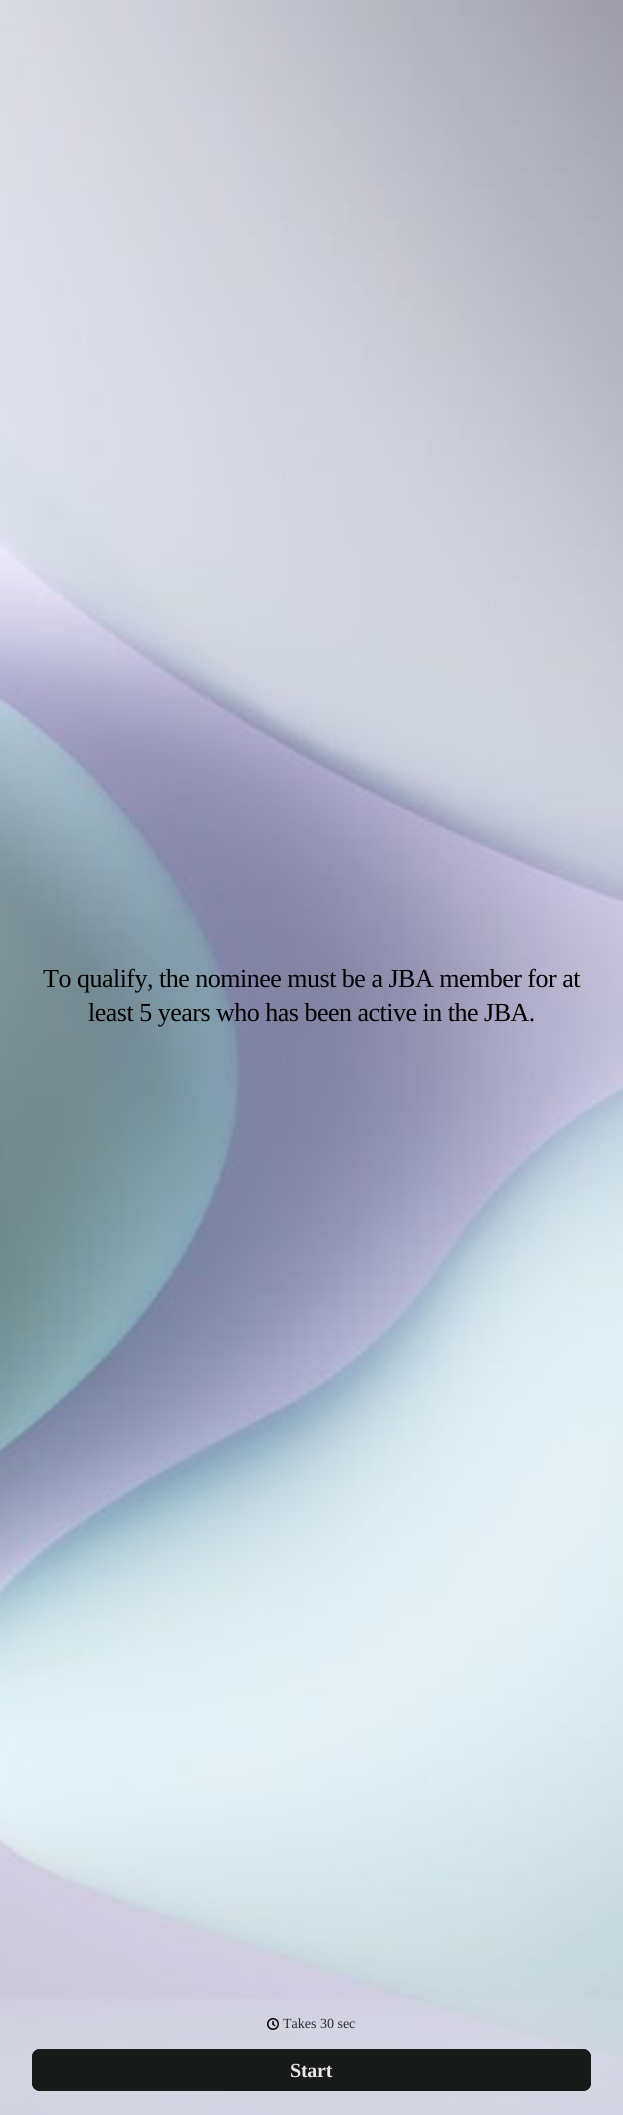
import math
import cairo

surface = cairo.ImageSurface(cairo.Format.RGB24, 623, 2115)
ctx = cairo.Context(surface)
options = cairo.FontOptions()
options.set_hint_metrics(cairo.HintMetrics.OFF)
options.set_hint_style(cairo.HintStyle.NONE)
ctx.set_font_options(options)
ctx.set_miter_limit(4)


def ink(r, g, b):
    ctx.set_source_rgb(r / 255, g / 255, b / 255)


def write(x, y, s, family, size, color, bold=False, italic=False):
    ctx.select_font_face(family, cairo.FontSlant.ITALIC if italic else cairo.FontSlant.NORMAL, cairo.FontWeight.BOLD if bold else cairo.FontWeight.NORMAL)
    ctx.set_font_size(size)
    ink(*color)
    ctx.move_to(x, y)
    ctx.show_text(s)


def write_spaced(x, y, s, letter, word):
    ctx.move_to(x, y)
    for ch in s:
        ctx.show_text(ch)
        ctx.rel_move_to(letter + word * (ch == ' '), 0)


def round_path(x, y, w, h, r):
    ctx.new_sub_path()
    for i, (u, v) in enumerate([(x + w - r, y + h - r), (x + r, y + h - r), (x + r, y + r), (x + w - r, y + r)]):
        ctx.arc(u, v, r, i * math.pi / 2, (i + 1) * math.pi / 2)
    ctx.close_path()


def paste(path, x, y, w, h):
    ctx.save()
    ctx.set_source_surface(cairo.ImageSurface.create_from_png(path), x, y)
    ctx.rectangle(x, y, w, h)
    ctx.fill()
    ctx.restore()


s1 = dict(family="Liberation Serif", size=14, color=(44, 45, 47))

ink(255, 255, 255)
ctx.paint()
paste("pic1.png", 0, 0, 623, 2115)
ctx.select_font_face("Liberation Serif")
ctx.set_font_size(26)
ink(0, 0, 0)
write_spaced(43, 987, "To qualify, the nominee must be a JBA member for at", -0.5, 0)
write_spaced(88, 1021, "least 5 years who has been active in the JBA.", -0.5, 0)
paste("pic2.png", 267, 2018, 12, 12)
write(283, 2028, "Takes 30 sec", **s1)
round_path(32.5, 2049.5, 558, 41, 7.5)
ink(24, 25, 25)
ctx.set_line_width(1)
ctx.stroke()
round_path(32, 2049, 559, 42, 8)
ctx.fill()
ctx.select_font_face("Liberation Serif", cairo.FontSlant.NORMAL, cairo.FontWeight.BOLD)
ctx.set_font_size(20)
ink(232, 232, 232)
write_spaced(290, 2077, "Start", -0.25, 0)
surface.write_to_png("screenshot.png")
